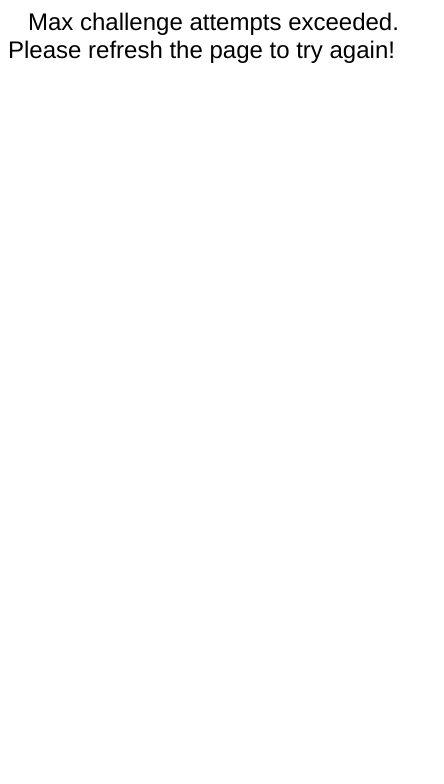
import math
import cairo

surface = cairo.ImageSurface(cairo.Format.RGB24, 444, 784)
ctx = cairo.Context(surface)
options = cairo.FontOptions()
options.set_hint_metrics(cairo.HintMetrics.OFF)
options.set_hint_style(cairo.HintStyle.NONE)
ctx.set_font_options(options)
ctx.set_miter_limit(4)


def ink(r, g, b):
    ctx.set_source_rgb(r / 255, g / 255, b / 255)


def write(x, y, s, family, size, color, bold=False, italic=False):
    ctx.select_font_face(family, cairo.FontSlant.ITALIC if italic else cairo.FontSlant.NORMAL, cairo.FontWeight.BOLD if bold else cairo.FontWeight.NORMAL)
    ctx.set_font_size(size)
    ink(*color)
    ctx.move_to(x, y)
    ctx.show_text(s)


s1 = dict(family="Liberation Sans", size=24, color=(0, 0, 0))

ink(255, 255, 255)
ctx.paint()
write(28, 30, "Max challenge attempts exceeded.", **s1)
write(8, 58, "Please refresh the page to try again!", **s1)
surface.write_to_png("screenshot.png")
